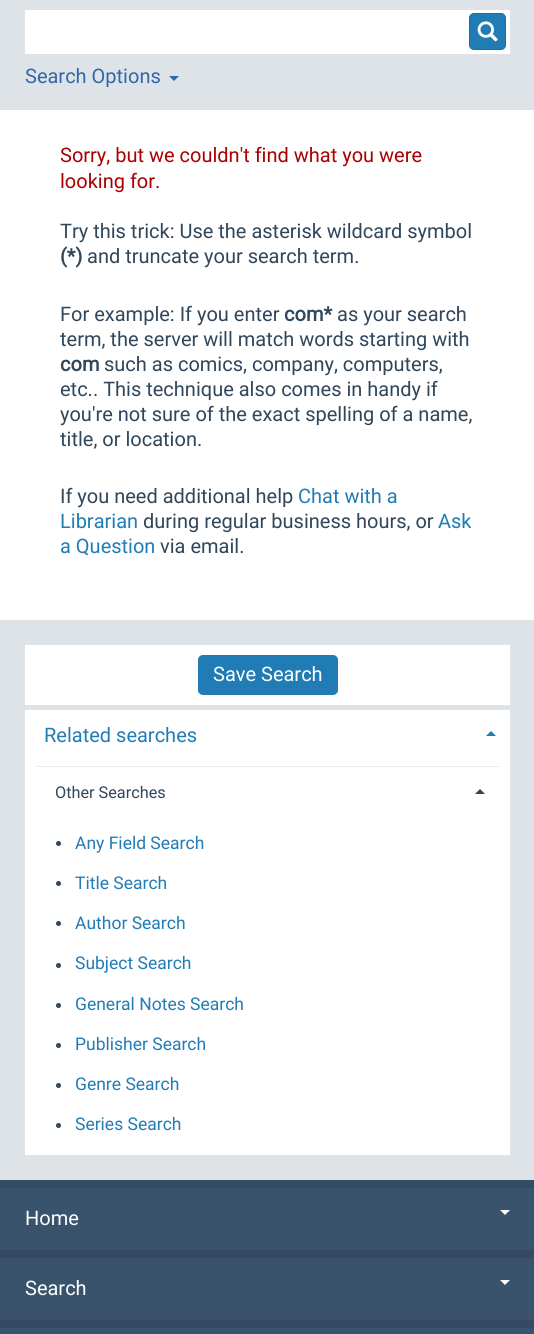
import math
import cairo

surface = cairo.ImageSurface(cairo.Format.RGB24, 534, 1334)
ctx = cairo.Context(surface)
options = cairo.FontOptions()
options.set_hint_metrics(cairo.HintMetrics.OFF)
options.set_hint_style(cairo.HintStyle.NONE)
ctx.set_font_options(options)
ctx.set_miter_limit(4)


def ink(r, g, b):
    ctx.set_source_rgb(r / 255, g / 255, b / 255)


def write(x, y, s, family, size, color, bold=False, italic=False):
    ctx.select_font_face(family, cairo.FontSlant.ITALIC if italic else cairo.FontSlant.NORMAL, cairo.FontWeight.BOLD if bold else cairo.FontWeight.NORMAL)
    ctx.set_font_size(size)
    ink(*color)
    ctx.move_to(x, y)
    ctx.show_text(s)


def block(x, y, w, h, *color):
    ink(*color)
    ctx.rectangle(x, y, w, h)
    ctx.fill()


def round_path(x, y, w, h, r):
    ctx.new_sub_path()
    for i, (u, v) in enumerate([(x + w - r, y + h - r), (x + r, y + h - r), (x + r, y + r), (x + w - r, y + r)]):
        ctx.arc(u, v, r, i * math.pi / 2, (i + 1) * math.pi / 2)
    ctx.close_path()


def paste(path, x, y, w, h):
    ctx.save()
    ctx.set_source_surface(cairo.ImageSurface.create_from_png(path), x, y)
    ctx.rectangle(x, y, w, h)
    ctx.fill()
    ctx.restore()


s1 = dict(family="Roboto", size=20, color=(49, 102, 170))
s2 = dict(family="Roboto", size=20, color=(170, 0, 0))
s3 = dict(family="Roboto", size=20, color=(48, 70, 91))
s4 = dict(family="Roboto", size=20, color=(48, 70, 91), bold=True)
s5 = dict(family="Roboto", size=20, color=(33, 124, 181))
s6 = dict(family="Roboto", size=20, color=(255, 255, 255))
s7 = dict(family="Roboto", size=16.25, color=(48, 70, 91))
s8 = dict(family="Roboto", size=17.5, color=(33, 124, 181))

ink(222, 227, 232)
ctx.paint()
block(0, 110, 534, 510, 255, 255, 255)
block(25, 10, 485, 44, 255, 255, 255)
ink(33, 124, 181)
round_path(469.5, 13.5, 36, 36, 4.5)
ctx.fill_preserve()
ink(29, 109, 159)
ctx.set_line_width(1)
ctx.stroke()
paste("pic1.png", 477, 21, 21, 21)
write(25, 83, "Search Options", **s1)
ctx.new_path()
ctx.move_to(169, 76)
ctx.line_to(179, 76)
ctx.line_to(174, 81)
ctx.close_path()
ctx.fill()
write(60, 162, "Sorry, but we couldn't find what you were", **s2)
write(60, 188, "looking for.", **s2)
write(60, 238, "Try this trick: Use the asterisk wildcard symbol", **s3)
write(60, 263, "(*)", **s4)
write(87, 263, "and truncate your search term.", **s3)
write(60, 321, "For example: If you enter", **s3)
write(284, 321, "com*", **s4)
write(337, 321, "as your search", **s3)
write(60, 346, "term, the server will match words starting with", **s3)
write(60, 371, "com", **s4)
write(104, 371, "such as comics, company, computers,", **s3)
write(60, 396, "etc.. This technique also comes in handy if", **s3)
write(60, 421, "you're not sure of the exact spelling of a name,", **s3)
write(60, 446, "title, or location.", **s3)
write(60, 503, "If you need additional help", **s3)
write(298, 503, "Chat with a", **s5)
write(60, 528, "Librarian", **s5)
write(143, 528, "during regular business hours, or", **s3)
write(438, 528, "Ask", **s5)
write(60, 553, "a Question", **s5)
write(160, 553, "via email.", **s3)
block(25, 645, 485, 60, 255, 255, 255)
ink(33, 124, 181)
round_path(198, 655, 140, 40, 5)
ctx.fill()
write(213, 681, "Save Search", **s6)
block(25, 710, 485, 445, 255, 255, 255)
write(44, 742, "Related searches", **s5)
ctx.new_path()
ctx.move_to(496, 736)
ctx.line_to(486, 736)
ctx.line_to(491, 731)
ctx.close_path()
ctx.fill()
block(36, 766, 463, 1, 229, 235, 241)
write(55, 798, "Other Searches", **s7)
ctx.new_path()
ctx.move_to(485, 794)
ctx.line_to(475, 794)
ctx.line_to(480, 789)
ctx.close_path()
ctx.fill()
ctx.arc(58.5, 843.5, 2.5, 0, 2 * math.pi)
ctx.fill()
write(75, 849, "Any Field Search", **s8)
ink(48, 70, 91)
ctx.new_path()
ctx.arc(58.5, 883.5, 2.5, 0, 2 * math.pi)
ctx.fill()
write(75, 889, "Title Search", **s8)
ink(48, 70, 91)
ctx.new_path()
ctx.arc(58.5, 923.5, 2.5, 0, 2 * math.pi)
ctx.fill()
write(75, 929, "Author Search", **s8)
ink(48, 70, 91)
ctx.new_path()
ctx.arc(58.5, 965.5, 2.5, 0, 2 * math.pi)
ctx.fill()
write(75, 969, "Subject Search", **s8)
ink(48, 70, 91)
ctx.new_path()
ctx.arc(58.5, 1005.5, 2.5, 0, 2 * math.pi)
ctx.fill()
write(75, 1010, "General Notes Search", **s8)
ink(48, 70, 91)
ctx.new_path()
ctx.arc(58.5, 1045.5, 2.5, 0, 2 * math.pi)
ctx.fill()
write(75, 1050, "Publisher Search", **s8)
ink(48, 70, 91)
ctx.new_path()
ctx.arc(58.5, 1085.5, 2.5, 0, 2 * math.pi)
ctx.fill()
write(75, 1090, "Genre Search", **s8)
ink(48, 70, 91)
ctx.new_path()
ctx.arc(58.5, 1125.5, 2.5, 0, 2 * math.pi)
ctx.fill()
write(75, 1130, "Series Search", **s8)
block(0, 1180, 534, 148, 52, 75, 98)
block(0, 1188, 534, 62, 57, 83, 108)
write(25, 1225, "Home", **s6)
ctx.new_path()
ctx.move_to(500, 1210)
ctx.line_to(510, 1210)
ctx.line_to(505, 1215)
ctx.close_path()
ctx.fill()
block(0, 1258, 534, 62, 57, 83, 108)
write(25, 1295, "Search", **s6)
ctx.new_path()
ctx.move_to(500, 1280)
ctx.line_to(510, 1280)
ctx.line_to(505, 1285)
ctx.close_path()
ctx.fill()
block(0, 1328, 534, 6, 57, 83, 108)
surface.write_to_png("screenshot.png")
